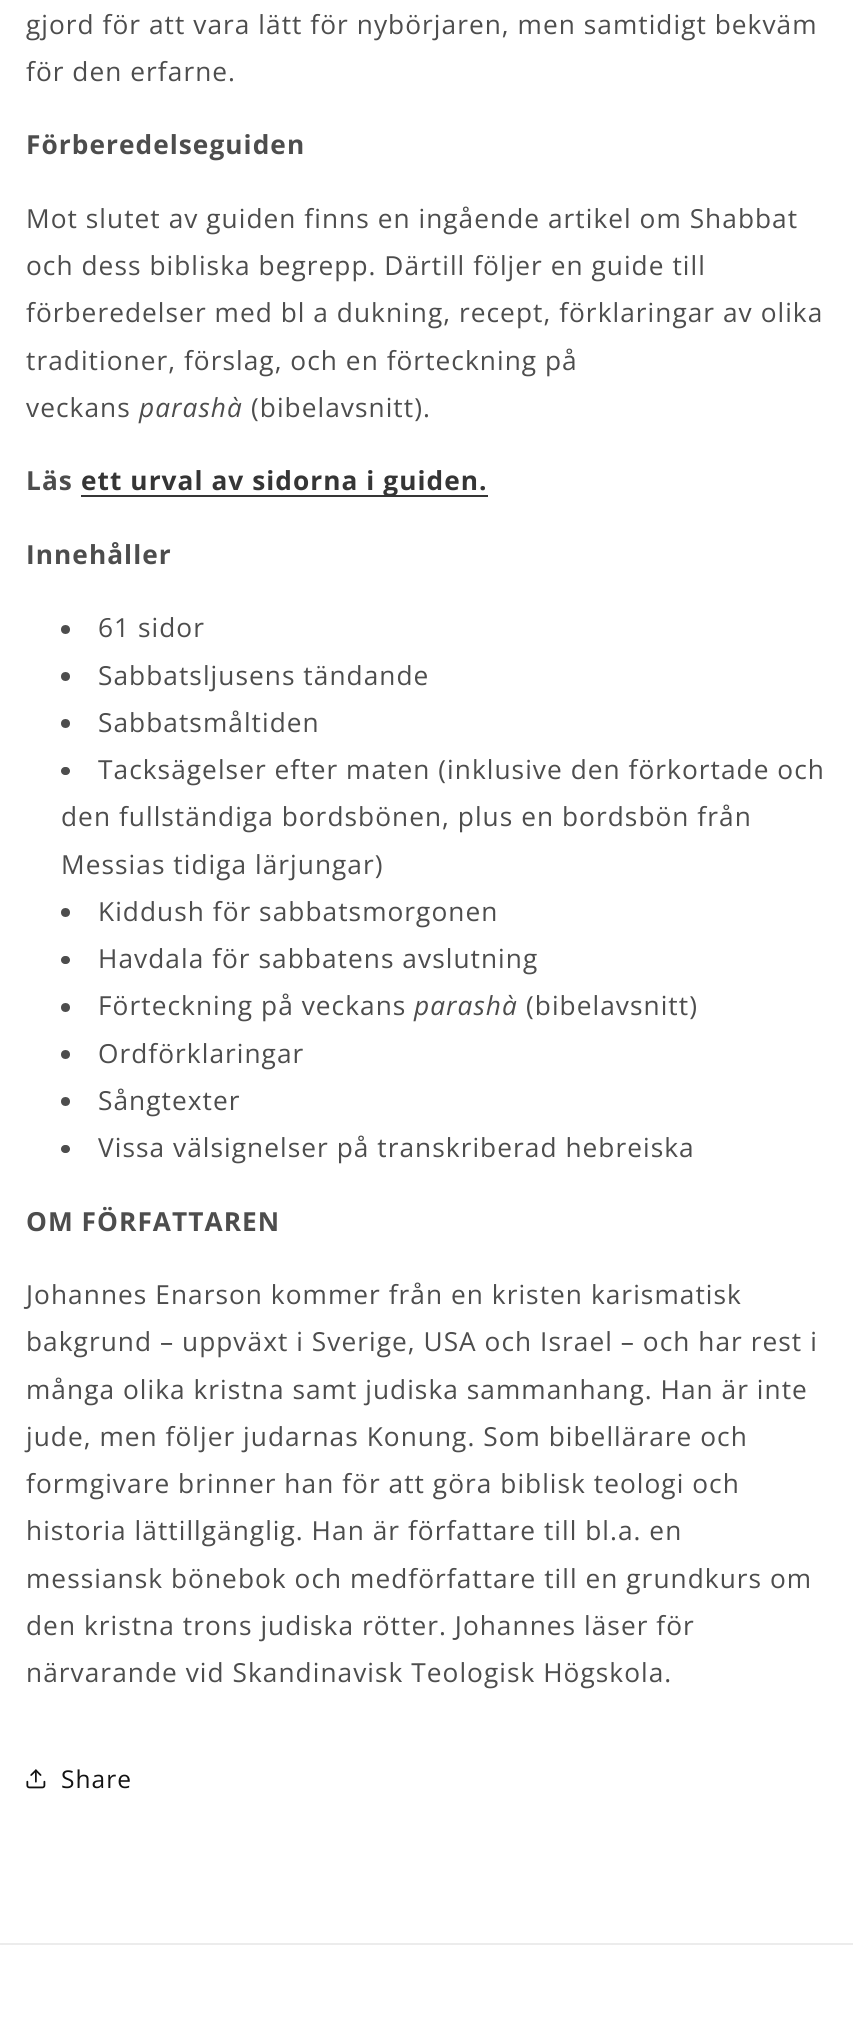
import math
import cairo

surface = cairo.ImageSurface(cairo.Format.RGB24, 853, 2027)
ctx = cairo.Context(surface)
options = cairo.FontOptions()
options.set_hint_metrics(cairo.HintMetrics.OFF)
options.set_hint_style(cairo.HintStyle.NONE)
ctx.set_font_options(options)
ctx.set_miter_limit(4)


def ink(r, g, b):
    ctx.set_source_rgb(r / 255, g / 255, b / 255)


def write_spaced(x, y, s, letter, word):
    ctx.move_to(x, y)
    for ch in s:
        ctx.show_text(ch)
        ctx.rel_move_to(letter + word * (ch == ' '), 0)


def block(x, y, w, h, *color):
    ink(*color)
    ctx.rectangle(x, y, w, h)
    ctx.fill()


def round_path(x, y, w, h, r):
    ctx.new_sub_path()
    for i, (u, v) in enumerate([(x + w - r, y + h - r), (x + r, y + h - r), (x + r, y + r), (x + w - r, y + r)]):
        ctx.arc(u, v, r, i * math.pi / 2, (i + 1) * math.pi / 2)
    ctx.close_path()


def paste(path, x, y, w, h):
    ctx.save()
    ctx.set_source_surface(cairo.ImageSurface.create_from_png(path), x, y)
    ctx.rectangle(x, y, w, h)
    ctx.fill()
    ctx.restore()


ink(255, 255, 255)
ctx.paint()
ctx.select_font_face("Open Sans")
ctx.set_font_size(26.25)
ink(77, 77, 77)
write_spaced(26, 34, "gjord för att vara lätt för nybörjaren, men samtidigt bekväm", 1.05, 0)
write_spaced(26, 81, "för den erfarne.", 1.05, 0)
ctx.select_font_face("Open Sans", cairo.FontSlant.NORMAL, cairo.FontWeight.BOLD)
write_spaced(26, 154, "Förberedelseguiden", 1.05, 0)
ctx.select_font_face("Open Sans")
write_spaced(26, 228, "Mot slutet av guiden finns en ingående artikel om Shabbat", 1.05, 0)
write_spaced(26, 275, "och dess bibliska begrepp. Därtill följer en guide till", 1.05, 0)
write_spaced(26, 322, "förberedelser med bl a dukning, recept, förklaringar av olika", 1.05, 0)
write_spaced(26, 370, "traditioner, förslag, och en förteckning på", 1.05, 0)
write_spaced(26, 417, "veckans", 1.05, 0)
ctx.select_font_face("Open Sans", cairo.FontSlant.ITALIC)
write_spaced(139, 417, "parashà", 1.05, 0)
ctx.select_font_face("Open Sans")
write_spaced(251, 417, "(bibelavsnitt).", 1.05, 0)
ctx.select_font_face("Open Sans", cairo.FontSlant.NORMAL, cairo.FontWeight.BOLD)
write_spaced(26, 490, "Läs", 1.05, 0)
block(81, 495, 407, 2, 54, 54, 54)
ink(53, 53, 53)
write_spaced(81, 490, "ett urval av sidorna i guiden.", 1.05, 0)
ink(77, 77, 77)
write_spaced(26, 564, "Innehåller", 1.05, 0)
ctx.new_path()
ctx.arc(65.5, 629.5, 4.5, 0, 2 * math.pi)
ctx.fill()
ctx.select_font_face("Open Sans")
write_spaced(98, 637, "61 sidor", 1.05, 0)
ctx.new_path()
ctx.arc(65.5, 676.5, 4.5, 0, 2 * math.pi)
ctx.fill()
write_spaced(98, 685, "Sabbatsljusens tändande", 1.05, 0)
ctx.new_path()
ctx.arc(65.5, 723.5, 4.5, 0, 2 * math.pi)
ctx.fill()
write_spaced(98, 732, "Sabbatsmåltiden", 1.05, 0)
round_path(61, 767, 9, 8, 4)
ctx.fill()
write_spaced(98, 779, "Tacksägelser efter maten (inklusive den förkortade och", 1.05, 0)
write_spaced(61, 826, "den fullständiga bordsbönen, plus en bordsbön från", 1.05, 0)
write_spaced(61, 874, "Messias tidiga lärjungar)", 1.05, 0)
ctx.new_path()
ctx.arc(65.5, 912.5, 4.5, 0, 2 * math.pi)
ctx.fill()
write_spaced(98, 921, "Kiddush för sabbatsmorgonen", 1.05, 0)
round_path(61, 956, 9, 8, 4)
ctx.fill()
write_spaced(98, 968, "Havdala för sabbatens avslutning", 1.05, 0)
ctx.new_path()
ctx.arc(65.5, 1007.5, 4.5, 0, 2 * math.pi)
ctx.fill()
write_spaced(98, 1015, "Förteckning på veckans", 1.05, 0)
ctx.select_font_face("Open Sans", cairo.FontSlant.ITALIC)
write_spaced(414, 1015, "parashà", 1.05, 0)
ctx.select_font_face("Open Sans")
write_spaced(526, 1015, "(bibelavsnitt)", 1.05, 0)
ctx.new_path()
ctx.arc(65.5, 1054.5, 4.5, 0, 2 * math.pi)
ctx.fill()
write_spaced(98, 1063, "Ordförklaringar", 1.05, 0)
ctx.new_path()
ctx.arc(65.5, 1101.5, 4.5, 0, 2 * math.pi)
ctx.fill()
write_spaced(98, 1110, "Sångtexter", 1.05, 0)
round_path(61, 1145, 9, 8, 4)
ctx.fill()
write_spaced(98, 1157, "Vissa välsignelser på transkriberad hebreiska", 1.05, 0)
ctx.select_font_face("Open Sans", cairo.FontSlant.NORMAL, cairo.FontWeight.BOLD)
write_spaced(26, 1231, "OM FÖRFATTAREN", 1.05, 0)
ctx.select_font_face("Open Sans")
write_spaced(26, 1304, "Johannes Enarson kommer från en kristen karismatisk", 1.05, 0)
write_spaced(26, 1351, "bakgrund – uppväxt i Sverige, USA och Israel – och har rest i", 1.05, 0)
write_spaced(26, 1399, "många olika kristna samt judiska sammanhang. Han är inte", 1.05, 0)
write_spaced(26, 1446, "jude, men följer judarnas Konung. Som bibellärare och", 1.05, 0)
write_spaced(26, 1493, "formgivare brinner han för att göra biblisk teologi och", 1.05, 0)
write_spaced(26, 1540, "historia lättillgänglig. Han är författare till bl.a. en", 1.05, 0)
write_spaced(26, 1588, "messiansk bönebok och medförfattare till en grundkurs om", 1.05, 0)
write_spaced(26, 1635, "den kristna trons judiska rötter. Johannes läser för", 1.05, 0)
write_spaced(26, 1682, "närvarande vid Skandinavisk Teologisk Högskola.", 1.05, 0)
paste("pic1.png", 26, 1769, 20, 20)
ctx.set_font_size(24.5)
ink(18, 18, 18)
write_spaced(61, 1788, "Share", 1.05, 0)
block(0, 1943, 853, 2, 236, 236, 236)
surface.write_to_png("screenshot.png")
